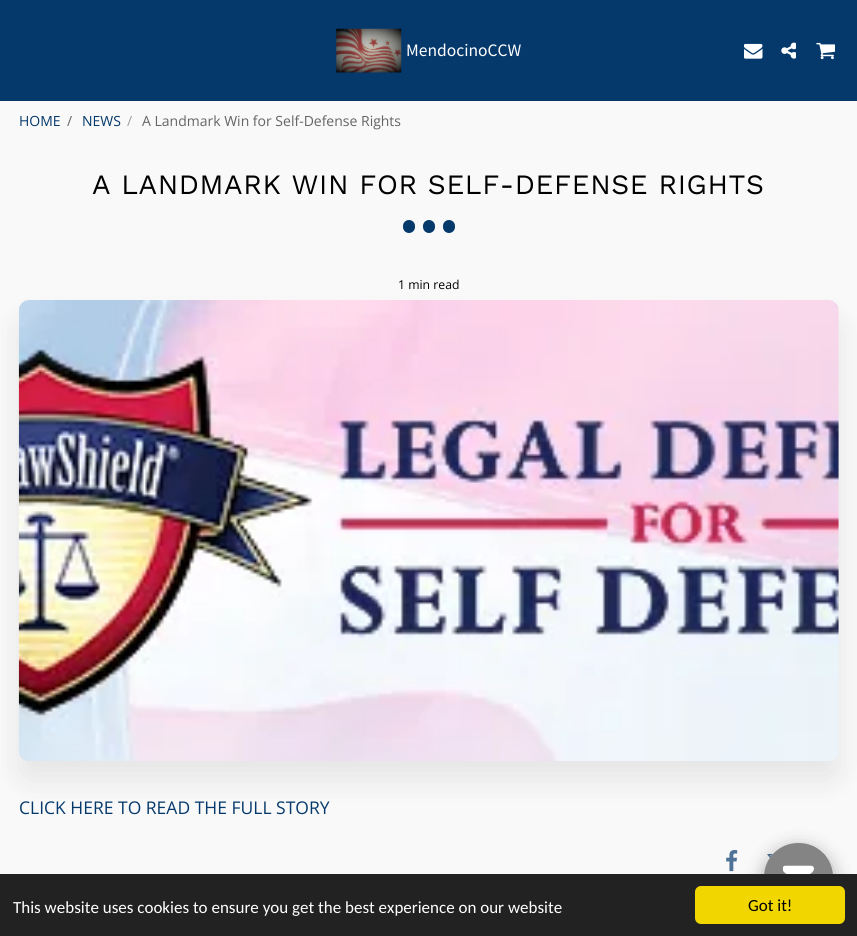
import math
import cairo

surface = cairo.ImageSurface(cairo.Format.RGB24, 857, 936)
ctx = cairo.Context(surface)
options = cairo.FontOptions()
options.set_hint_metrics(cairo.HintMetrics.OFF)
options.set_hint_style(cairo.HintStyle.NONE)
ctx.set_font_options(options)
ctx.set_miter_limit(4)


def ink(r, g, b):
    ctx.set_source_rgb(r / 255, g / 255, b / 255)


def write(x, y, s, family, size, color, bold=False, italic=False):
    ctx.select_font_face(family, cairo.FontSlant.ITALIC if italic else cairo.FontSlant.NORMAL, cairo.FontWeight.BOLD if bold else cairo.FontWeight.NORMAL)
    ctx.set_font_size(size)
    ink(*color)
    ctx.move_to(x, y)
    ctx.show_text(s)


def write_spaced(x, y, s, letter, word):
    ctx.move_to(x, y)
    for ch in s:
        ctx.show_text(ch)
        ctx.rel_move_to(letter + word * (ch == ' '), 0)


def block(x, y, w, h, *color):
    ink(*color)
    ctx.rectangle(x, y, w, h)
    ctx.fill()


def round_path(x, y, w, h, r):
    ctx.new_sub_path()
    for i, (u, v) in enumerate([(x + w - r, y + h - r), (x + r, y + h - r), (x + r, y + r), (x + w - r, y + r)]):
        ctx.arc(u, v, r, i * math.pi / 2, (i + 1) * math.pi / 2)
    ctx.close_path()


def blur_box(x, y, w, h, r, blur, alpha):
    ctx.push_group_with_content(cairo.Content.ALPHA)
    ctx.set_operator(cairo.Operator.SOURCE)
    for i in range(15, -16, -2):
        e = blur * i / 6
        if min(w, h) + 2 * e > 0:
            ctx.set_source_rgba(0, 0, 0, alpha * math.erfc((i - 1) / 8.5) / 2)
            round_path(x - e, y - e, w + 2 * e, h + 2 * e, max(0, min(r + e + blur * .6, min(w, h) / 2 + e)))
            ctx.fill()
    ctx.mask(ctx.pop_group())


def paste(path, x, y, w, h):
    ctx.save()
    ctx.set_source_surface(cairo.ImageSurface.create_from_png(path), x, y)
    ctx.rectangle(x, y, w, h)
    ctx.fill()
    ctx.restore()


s1 = dict(family="Source Sans Pro", size=17.5, color=(255, 255, 255))
s2 = dict(family="Open Sans", size=14, color=(5, 57, 107))
s3 = dict(family="Open Sans", size=14, color=(100, 100, 100))
s4 = dict(family="Open Sans", size=14, color=(159, 159, 159))
s5 = dict(family="Open Sans", size=12.25, color=(0, 0, 0))
s6 = dict(family="Open Sans", size=17.5, color=(5, 57, 107))
s7 = dict(family="Carlito", size=17, color=(255, 255, 255))
s8 = dict(family="Carlito", size=17, color=(0, 0, 0))

ink(249, 249, 249)
ctx.paint()
block(0, 0, 857, 101, 5, 57, 107)
paste("pic1.png", 336, 28, 66, 45)
write(406, 56, "MendocinoCCW", **s1)
paste("pic2.png", 744, 43, 19, 16)
paste("pic3.png", 781, 42, 15, 17)
paste("pic4.png", 816, 42, 19, 18)
write(19, 126, "HOME", **s2)
write(67, 126, "/", **s3)
write(82, 126, "NEWS", **s2)
write(127, 126, "/", **s4)
write(142, 126, "A Landmark Win for Self-Defense Rights", **s3)
ctx.select_font_face("Work Sans")
ctx.set_font_size(28)
ink(0, 0, 0)
write_spaced(92, 194, "A LANDMARK WIN FOR SELF-DEFENSE RIGHTS", 0.6, 0)
ink(5, 57, 107)
round_path(403, 220, 12, 13, 6)
ctx.fill()
round_path(423, 220, 12, 13, 6)
ctx.fill()
round_path(443, 220, 12, 13, 6)
ctx.fill()
write(398, 289, "1 min read", **s5)
ink(0, 0, 0)
blur_box(19, 319, 820, 461, 10, 15.5, 0.08)
paste("pic5.png", 18, 300, 821, 461)
write(19, 814, "CLICK HERE TO READ THE FULL STORY", **s6)
paste("pic6.png", 726, 850, 12, 22)
paste("pic7.png", 767, 854, 6, 4)
paste("pic8.png", 823, 853, 4, 5)
ink(0, 0, 0)
blur_box(764, 849, 69, 69, 34.5, 9.5, 0.35)
ink(132, 132, 132)
round_path(764, 843, 69, 68, 34)
ctx.fill()
block(0, 874, 857, 62, 34, 34, 34)
write(13, 913, "This website uses cookies to ensure you get the best experience on our website", **s7)
ink(241, 214, 0)
round_path(695, 886, 150, 38, 6)
ctx.fill()
write(748, 911, "Got it!", **s8)
paste("pic9.png", 783, 865, 31, 9)
surface.write_to_png("screenshot.png")
